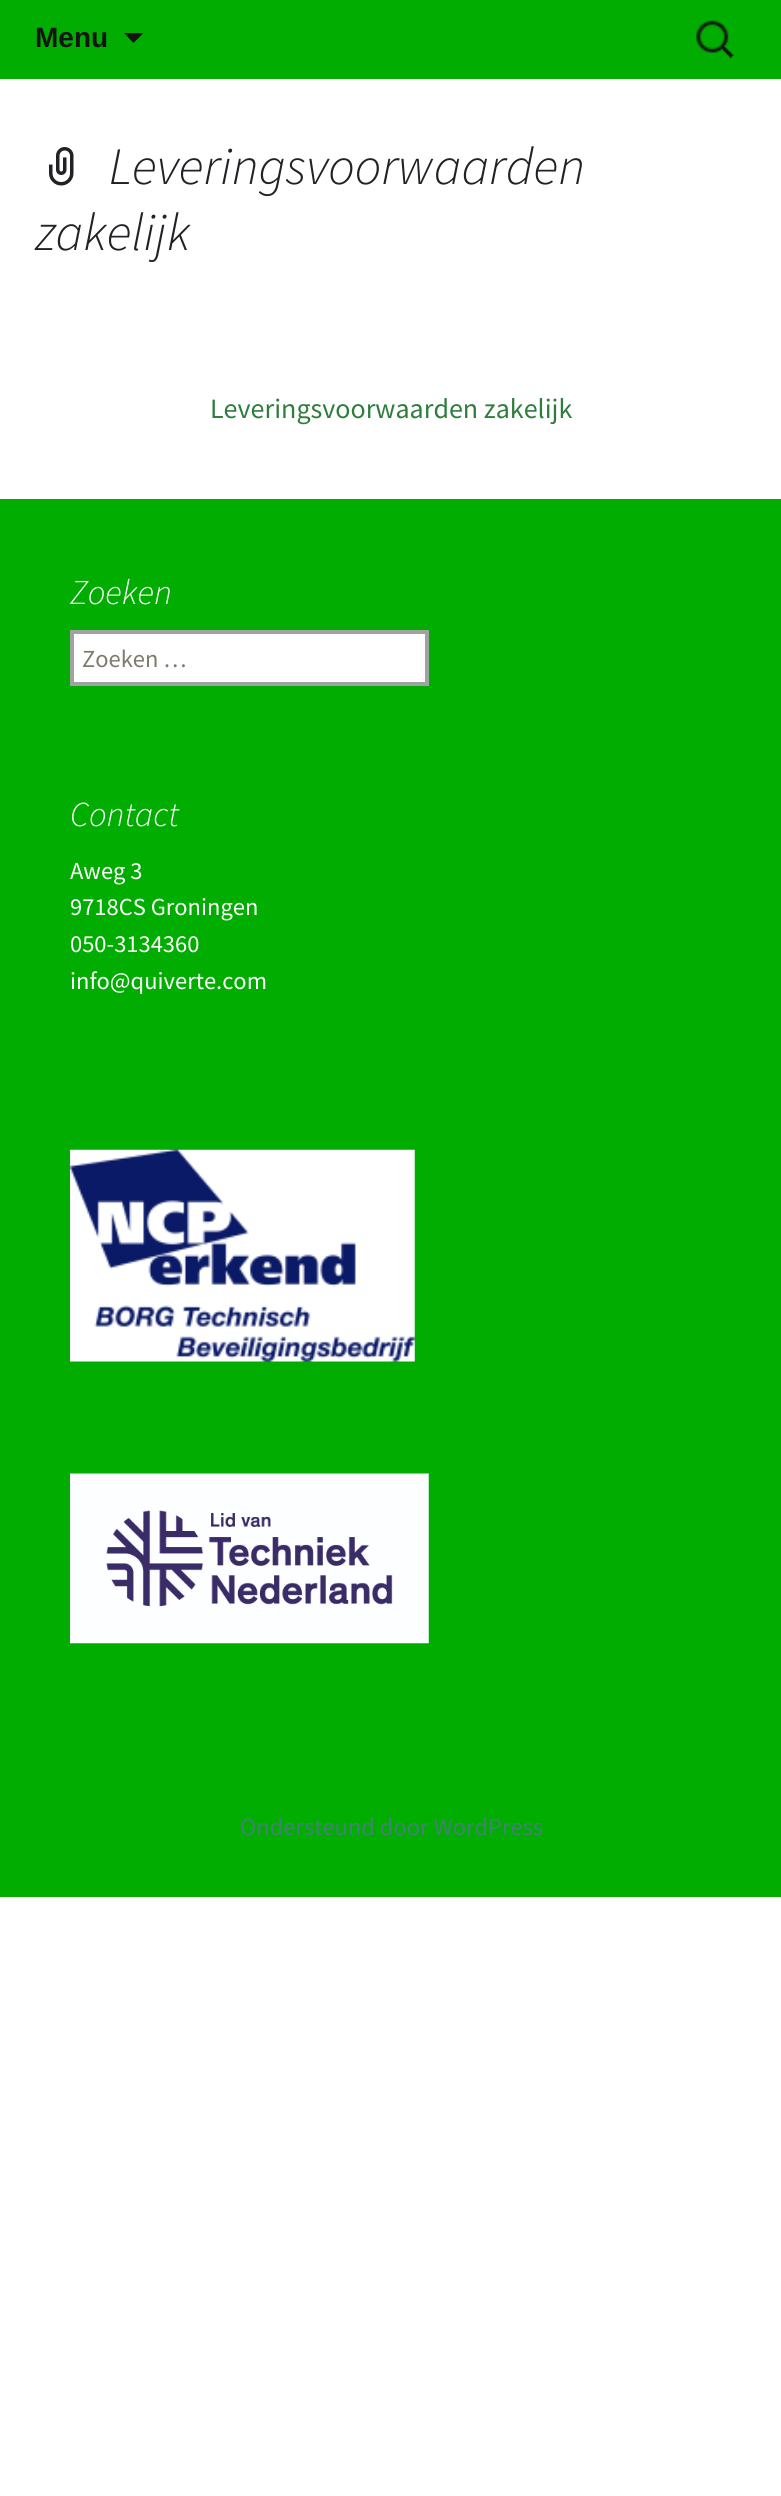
import math
import cairo

surface = cairo.ImageSurface(cairo.Format.RGB24, 781, 2496)
ctx = cairo.Context(surface)
options = cairo.FontOptions()
options.set_hint_metrics(cairo.HintMetrics.OFF)
options.set_hint_style(cairo.HintStyle.NONE)
ctx.set_font_options(options)
ctx.set_miter_limit(4)


def ink(r, g, b):
    ctx.set_source_rgb(r / 255, g / 255, b / 255)


def write(x, y, s, family, size, color, bold=False, italic=False):
    ctx.select_font_face(family, cairo.FontSlant.ITALIC if italic else cairo.FontSlant.NORMAL, cairo.FontWeight.BOLD if bold else cairo.FontWeight.NORMAL)
    ctx.set_font_size(size)
    ink(*color)
    ctx.move_to(x, y)
    ctx.show_text(s)


def block(x, y, w, h, *color):
    ink(*color)
    ctx.rectangle(x, y, w, h)
    ctx.fill()


def paste(path, x, y, w, h):
    ctx.save()
    ctx.set_source_surface(cairo.ImageSurface.create_from_png(path), x, y)
    ctx.rectangle(x, y, w, h)
    ctx.fill()
    ctx.restore()


s1 = dict(family="Liberation Sans", size=28, color=(20, 20, 18), bold=True)
s2 = dict(family="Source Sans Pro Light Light", size=52.5, color=(32, 34, 37), italic=True)
s3 = dict(family="Source Sans Pro", size=28, color=(47, 125, 61))
s4 = dict(family="Source Sans Pro Light Light", size=35, color=(255, 255, 255), italic=True)
s5 = dict(family="Source Sans Pro", size=24.5, color=(125, 123, 109))
s6 = dict(family="Source Sans Pro", size=24.5, color=(255, 255, 255))
s7 = dict(family="Source Sans Pro", size=24.5, color=(68, 130, 117))

ink(255, 255, 255)
ctx.paint()
block(0, 0, 781, 79, 0, 173, 0)
write(35, 47, "Menu", **s1)
ctx.new_path()
ctx.move_to(124, 33)
ctx.line_to(133.5, 43)
ctx.line_to(143.5, 33)
ctx.close_path()
ctx.fill()
paste("pic1.png", 696, 20, 38, 39)
paste("pic2.png", 49, 147, 25, 39)
write(109, 184, "Leveringsvoorwaarden", **s2)
write(35, 250, "zakelijk", **s2)
write(210, 418, "Leveringsvoorwaarden zakelijk", **s3)
block(0, 499, 781, 1398, 0, 173, 0)
write(70, 604, "Zoeken", **s4)
ctx.rectangle(72, 632, 355, 52)
ctx.fill_preserve()
ink(162, 162, 162)
ctx.set_line_width(4)
ctx.stroke()
write(82, 667, "Zoeken …", **s5)
write(70, 826, "Contact", **s4)
write(70, 879, "Aweg 3", **s6)
write(70, 915, "9718CS Groningen", **s6)
write(70, 952, "050-3134360", **s6)
write(70, 989, "info@quiverte.com", **s6)
paste("pic3.png", 70, 1149, 345, 213)
paste("pic4.png", 70, 1473, 359, 171)
write(240, 1835, "Ondersteund door WordPress", **s7)
surface.write_to_png("screenshot.png")
